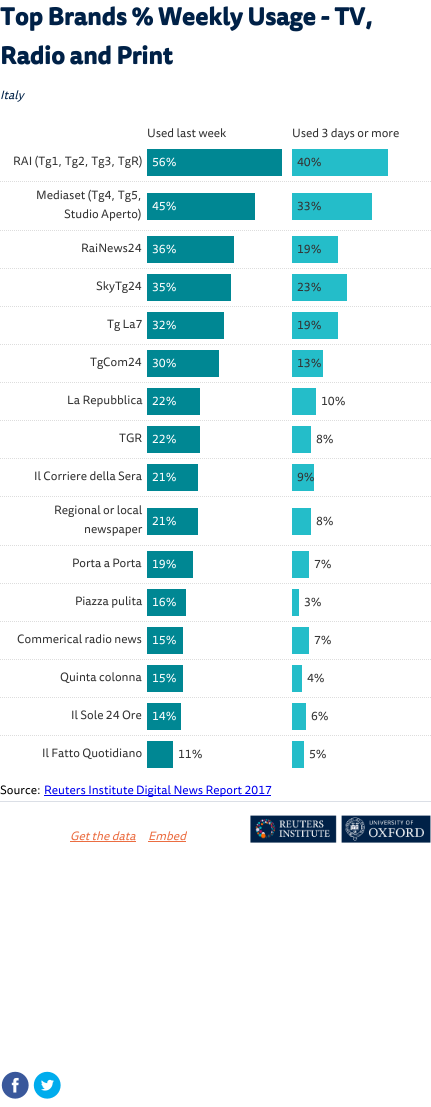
import math
import cairo

surface = cairo.ImageSurface(cairo.Format.RGB24, 431, 1107)
ctx = cairo.Context(surface)
options = cairo.FontOptions()
options.set_hint_metrics(cairo.HintMetrics.OFF)
options.set_hint_style(cairo.HintStyle.NONE)
ctx.set_font_options(options)
ctx.set_miter_limit(4)


def ink(r, g, b):
    ctx.set_source_rgb(r / 255, g / 255, b / 255)


def write(x, y, s, family, size, color, bold=False, italic=False):
    ctx.select_font_face(family, cairo.FontSlant.ITALIC if italic else cairo.FontSlant.NORMAL, cairo.FontWeight.BOLD if bold else cairo.FontWeight.NORMAL)
    ctx.set_font_size(size)
    ink(*color)
    ctx.move_to(x, y)
    ctx.show_text(s)


def block(x, y, w, h, *color):
    ink(*color)
    ctx.rectangle(x, y, w, h)
    ctx.fill()


def paste(path, x, y, w, h):
    ctx.save()
    ctx.set_source_surface(cairo.ImageSurface.create_from_png(path), x, y)
    ctx.rectangle(x, y, w, h)
    ctx.fill()
    ctx.restore()


s1 = dict(family="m", size=24, color=(0, 33, 71), bold=True)
s2 = dict(family="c", size=12, color=(0, 33, 71), italic=True)
s3 = dict(family="c", size=12, color=(51, 51, 51))
s4 = dict(family="c", size=12, color=(255, 255, 255))
s5 = dict(family="c", size=12, color=(0, 0, 0))
s6 = dict(family="c", size=12, color=(0, 0, 238))
s7 = dict(family="c", size=12, color=(235, 109, 65), italic=True)

ink(255, 255, 255)
ctx.paint()
write(0, 25, "Top Brands % Weekly Usage - TV,", **s1)
write(0, 64, "Radio and Print", **s1)
write(0, 99, "Italy", **s2)
write(147, 137, "Used last week", **s3)
write(292, 137, "Used 3 days or more", **s3)
write(13, 165, "RAI (Tg1, Tg2, Tg3, TgR)", **s3)
block(147, 149, 135, 27, 0, 135, 147)
write(152, 166, "56%", **s4)
block(292, 149, 96, 27, 36, 189, 201)
write(297, 166, "40%", **s3)
ctx.new_path()
ctx.move_to(0, 181.5)
ctx.line_to(431, 181.5)
ink(221, 221, 221)
ctx.set_line_width(1)
ctx.set_dash([1, 1])
ctx.stroke()
write(36, 199, "Mediaset (Tg4, Tg5,", **s3)
write(64, 218, "Studio Aperto)", **s3)
block(147, 193, 108, 27, 0, 135, 147)
write(152, 210, "45%", **s4)
block(292, 193, 80, 27, 36, 189, 201)
write(297, 210, "33%", **s3)
ctx.new_path()
ctx.move_to(0, 230.5)
ctx.line_to(431, 230.5)
ink(221, 221, 221)
ctx.stroke()
write(81, 252, "RaiNews24", **s3)
block(147, 236, 87, 27, 0, 135, 147)
write(152, 253, "36%", **s4)
block(292, 236, 46, 27, 36, 189, 201)
write(297, 253, "19%", **s3)
ctx.new_path()
ctx.move_to(0, 268.5)
ctx.line_to(431, 268.5)
ink(221, 221, 221)
ctx.stroke()
write(96, 290, "SkyTg24", **s3)
block(147, 274, 84, 27, 0, 135, 147)
write(152, 291, "35%", **s4)
block(292, 274, 55, 27, 36, 189, 201)
write(297, 291, "23%", **s3)
ctx.new_path()
ctx.move_to(0, 306.5)
ctx.line_to(431, 306.5)
ink(221, 221, 221)
ctx.stroke()
write(107, 328, "Tg La7", **s3)
block(147, 312, 77, 27, 0, 135, 147)
write(152, 329, "32%", **s4)
block(292, 312, 46, 27, 36, 189, 201)
write(297, 329, "19%", **s3)
ctx.new_path()
ctx.move_to(0, 344.5)
ctx.line_to(431, 344.5)
ink(221, 221, 221)
ctx.stroke()
write(90, 366, "TgCom24", **s3)
block(147, 350, 72, 27, 0, 135, 147)
write(152, 367, "30%", **s4)
block(292, 350, 31, 27, 36, 189, 201)
write(297, 367, "13%", **s3)
ctx.new_path()
ctx.move_to(0, 382.5)
ctx.line_to(431, 382.5)
ink(221, 221, 221)
ctx.stroke()
write(67, 404, "La Repubblica", **s3)
block(147, 388, 53, 27, 0, 135, 147)
write(152, 405, "22%", **s4)
block(292, 388, 24, 27, 36, 189, 201)
write(321, 405, "10%", **s3)
ctx.new_path()
ctx.move_to(0, 420.5)
ctx.line_to(431, 420.5)
ink(221, 221, 221)
ctx.stroke()
write(119, 442, "TGR", **s3)
block(147, 426, 53, 27, 0, 135, 147)
write(152, 443, "22%", **s4)
block(292, 426, 19, 27, 36, 189, 201)
write(316, 443, "8%", **s3)
ctx.new_path()
ctx.move_to(0, 458.5)
ctx.line_to(431, 458.5)
ink(221, 221, 221)
ctx.stroke()
write(34, 480, "Il Corriere della Sera", **s3)
block(147, 464, 51, 27, 0, 135, 147)
write(152, 481, "21%", **s4)
block(292, 464, 22, 27, 36, 189, 201)
write(297, 481, "9%", **s3)
ctx.new_path()
ctx.move_to(0, 496.5)
ctx.line_to(431, 496.5)
ink(221, 221, 221)
ctx.stroke()
write(54, 514, "Regional or local", **s3)
write(84, 533, "newspaper", **s3)
block(147, 508, 51, 27, 0, 135, 147)
write(152, 525, "21%", **s4)
block(292, 508, 19, 27, 36, 189, 201)
write(316, 525, "8%", **s3)
ctx.new_path()
ctx.move_to(0, 545.5)
ctx.line_to(431, 545.5)
ink(221, 221, 221)
ctx.stroke()
write(72, 567, "Porta a Porta", **s3)
block(147, 551, 46, 27, 0, 135, 147)
write(152, 568, "19%", **s4)
block(292, 551, 17, 27, 36, 189, 201)
write(314, 568, "7%", **s3)
ctx.new_path()
ctx.move_to(0, 583.5)
ctx.line_to(431, 583.5)
ink(221, 221, 221)
ctx.stroke()
write(75, 605, "Piazza pulita", **s3)
block(147, 589, 39, 27, 0, 135, 147)
write(152, 606, "16%", **s4)
block(292, 589, 7, 27, 36, 189, 201)
write(304, 606, "3%", **s3)
ctx.new_path()
ctx.move_to(0, 621.5)
ctx.line_to(431, 621.5)
ink(221, 221, 221)
ctx.stroke()
write(17, 643, "Commerical radio news", **s3)
block(147, 627, 36, 27, 0, 135, 147)
write(152, 644, "15%", **s4)
block(292, 627, 17, 27, 36, 189, 201)
write(314, 644, "7%", **s3)
ctx.new_path()
ctx.move_to(0, 659.5)
ctx.line_to(431, 659.5)
ink(221, 221, 221)
ctx.stroke()
write(60, 681, "Quinta colonna", **s3)
block(147, 665, 36, 27, 0, 135, 147)
write(152, 682, "15%", **s4)
block(292, 665, 10, 27, 36, 189, 201)
write(307, 682, "4%", **s3)
ctx.new_path()
ctx.move_to(0, 697.5)
ctx.line_to(431, 697.5)
ink(221, 221, 221)
ctx.stroke()
write(71, 719, "Il Sole 24 Ore", **s3)
block(147, 703, 34, 27, 0, 135, 147)
write(152, 720, "14%", **s4)
block(292, 703, 14, 27, 36, 189, 201)
write(311, 720, "6%", **s3)
ctx.new_path()
ctx.move_to(0, 735.5)
ctx.line_to(431, 735.5)
ink(221, 221, 221)
ctx.stroke()
write(42, 757, "Il Fatto Quotidiano", **s3)
block(147, 741, 26, 27, 0, 135, 147)
write(178, 758, "11%", **s3)
block(292, 741, 12, 27, 36, 189, 201)
write(309, 758, "5%", **s3)
write(0, 794, "Source:", **s5)
block(44, 795, 227, 1, 0, 0, 238)
write(44, 794, "Reuters Institute Digital News Report 2017", **s6)
block(0, 801, 431, 1, 219, 223, 230)
write(70, 840, "Get the data", **s7)
block(70, 841, 66, 1, 235, 109, 65)
write(148, 840, "Embed", **s7)
block(148, 841, 38, 1, 235, 109, 65)
paste("pic1.png", 250, 815, 181, 28)
paste("pic2.png", 1, 1071, 28, 28)
paste("pic3.png", 33, 1071, 28, 28)
surface.write_to_png("screenshot.png")
